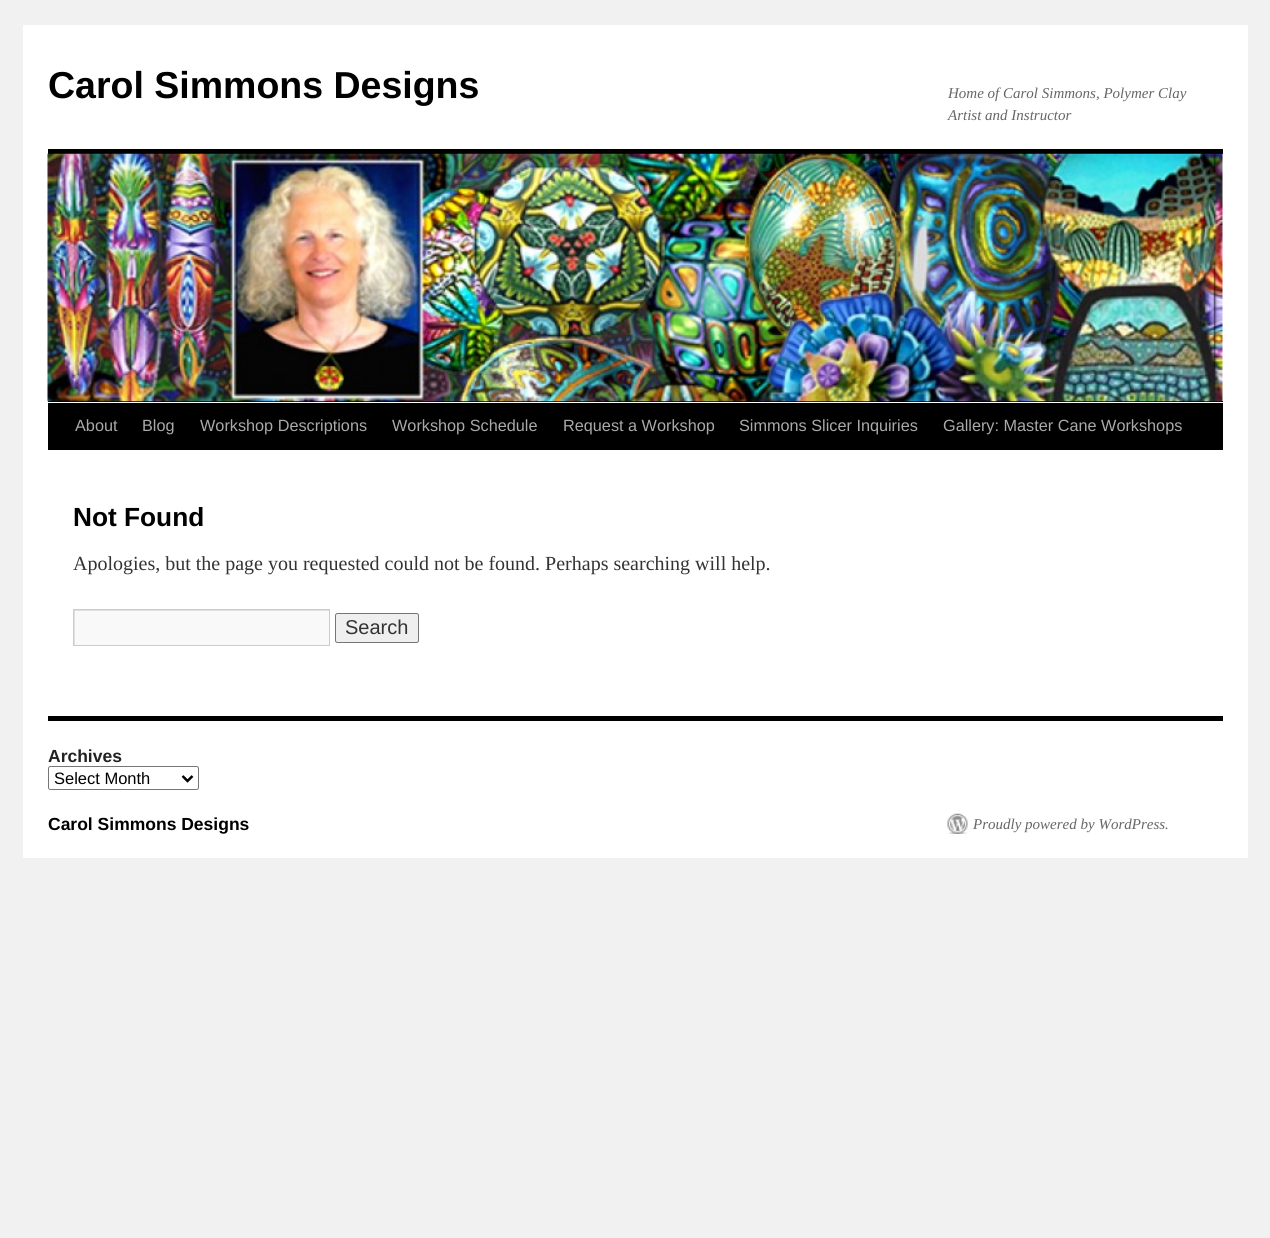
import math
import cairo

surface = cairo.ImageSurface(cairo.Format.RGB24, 1270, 1238)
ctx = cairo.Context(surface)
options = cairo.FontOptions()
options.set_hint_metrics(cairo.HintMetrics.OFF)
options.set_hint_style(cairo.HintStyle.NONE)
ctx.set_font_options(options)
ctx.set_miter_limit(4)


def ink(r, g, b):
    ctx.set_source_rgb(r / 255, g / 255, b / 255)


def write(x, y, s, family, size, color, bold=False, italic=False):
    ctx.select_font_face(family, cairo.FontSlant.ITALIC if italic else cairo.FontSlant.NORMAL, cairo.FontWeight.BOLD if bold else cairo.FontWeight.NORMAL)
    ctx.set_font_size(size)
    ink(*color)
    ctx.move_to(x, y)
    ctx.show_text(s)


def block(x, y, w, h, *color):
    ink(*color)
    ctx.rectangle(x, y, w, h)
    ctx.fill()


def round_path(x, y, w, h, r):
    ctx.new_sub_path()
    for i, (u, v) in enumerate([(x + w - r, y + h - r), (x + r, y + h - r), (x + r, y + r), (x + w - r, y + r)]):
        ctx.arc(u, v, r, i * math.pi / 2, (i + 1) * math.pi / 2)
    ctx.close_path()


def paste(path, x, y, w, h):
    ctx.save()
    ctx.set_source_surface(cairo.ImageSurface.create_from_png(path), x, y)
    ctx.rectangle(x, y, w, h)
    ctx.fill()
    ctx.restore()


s1 = dict(family="Liberation Sans", size=37.5, color=(0, 0, 0), bold=True)
s2 = dict(family="Liberation Serif", size=15, color=(102, 102, 102), italic=True)
s3 = dict(family="Liberation Sans", size=16.25, color=(170, 170, 170))
s4 = dict(family="Liberation Sans", size=26.25, color=(0, 0, 0), bold=True)
s5 = dict(family="Liberation Serif", size=20, color=(51, 51, 51))
s6 = dict(family="Liberation Sans", size=20, color=(51, 51, 51))
s7 = dict(family="Liberation Sans", size=17.5, color=(34, 34, 34), bold=True)
s8 = dict(family="Liberation Sans", size=16.5, color=(0, 0, 0))
s9 = dict(family="Liberation Sans", size=17.5, color=(0, 0, 0), bold=True)

ink(241, 241, 241)
ctx.paint()
block(23, 25, 1225, 833, 255, 255, 255)
write(48, 98, "Carol Simmons Designs", **s1)
write(948, 98, "Home of Carol Simmons, Polymer Clay", **s2)
write(948, 120, "Artist and Instructor", **s2)
block(48, 149, 1175, 5, 0, 0, 0)
block(48, 401, 1175, 1, 0, 0, 0)
paste("pic1.png", 47, 153, 1176, 249)
block(48, 403, 1175, 47, 0, 0, 0)
write(75, 431, "About", **s3)
write(142, 431, "Blog", **s3)
write(200, 431, "Workshop Descriptions", **s3)
write(392, 431, "Workshop Schedule", **s3)
write(563, 431, "Request a Workshop", **s3)
write(739, 431, "Simmons Slicer Inquiries", **s3)
write(943, 431, "Gallery: Master Cane Workshops", **s3)
write(73, 526, "Not Found", **s4)
write(73, 570, "Apologies, but the page you requested could not be found. Perhaps searching will help.", **s5)
block(75, 611, 254, 34, 249, 249, 249)
ctx.save()
ctx.rectangle(74, 610, 255, 35)
ctx.clip()
ink(224, 224, 224)
ctx.set_fill_rule(cairo.FillRule.EVEN_ODD)
ctx.new_path()
ctx.move_to(-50, 486)
ctx.line_to(452, 486)
ctx.line_to(452, 769)
ctx.line_to(-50, 769)
ctx.close_path()
ctx.move_to(75, 611)
ctx.line_to(330, 611)
ctx.line_to(330, 646)
ctx.line_to(75, 646)
ctx.close_path()
ctx.fill()
ctx.restore()
ctx.rectangle(73.5, 609.5, 256, 36)
ink(204, 204, 204)
ctx.set_line_width(1)
ctx.stroke()
ink(239, 239, 239)
round_path(335.5, 613.5, 83, 29, 2)
ctx.fill_preserve()
ink(118, 118, 118)
ctx.stroke()
write(345, 634, "Search", **s6)
block(48, 716, 1175, 5, 0, 0, 0)
write(48, 762, "Archives", **s7)
round_path(48.5, 766.5, 150, 23, 2)
ink(118, 118, 118)
ctx.stroke()
ctx.new_path()
ctx.move_to(182.5, 776)
ctx.line_to(187.5, 781)
ctx.line_to(192.5, 776)
ink(0, 0, 0)
ctx.set_line_width(2.5)
ctx.stroke()
write(54, 784, "Select Month", **s8)
write(48, 830, "Carol Simmons Designs", **s9)
paste("pic2.png", 947, 813, 21, 21)
write(973, 829, "Proudly powered by WordPress.", **s2)
surface.write_to_png("screenshot.png")
